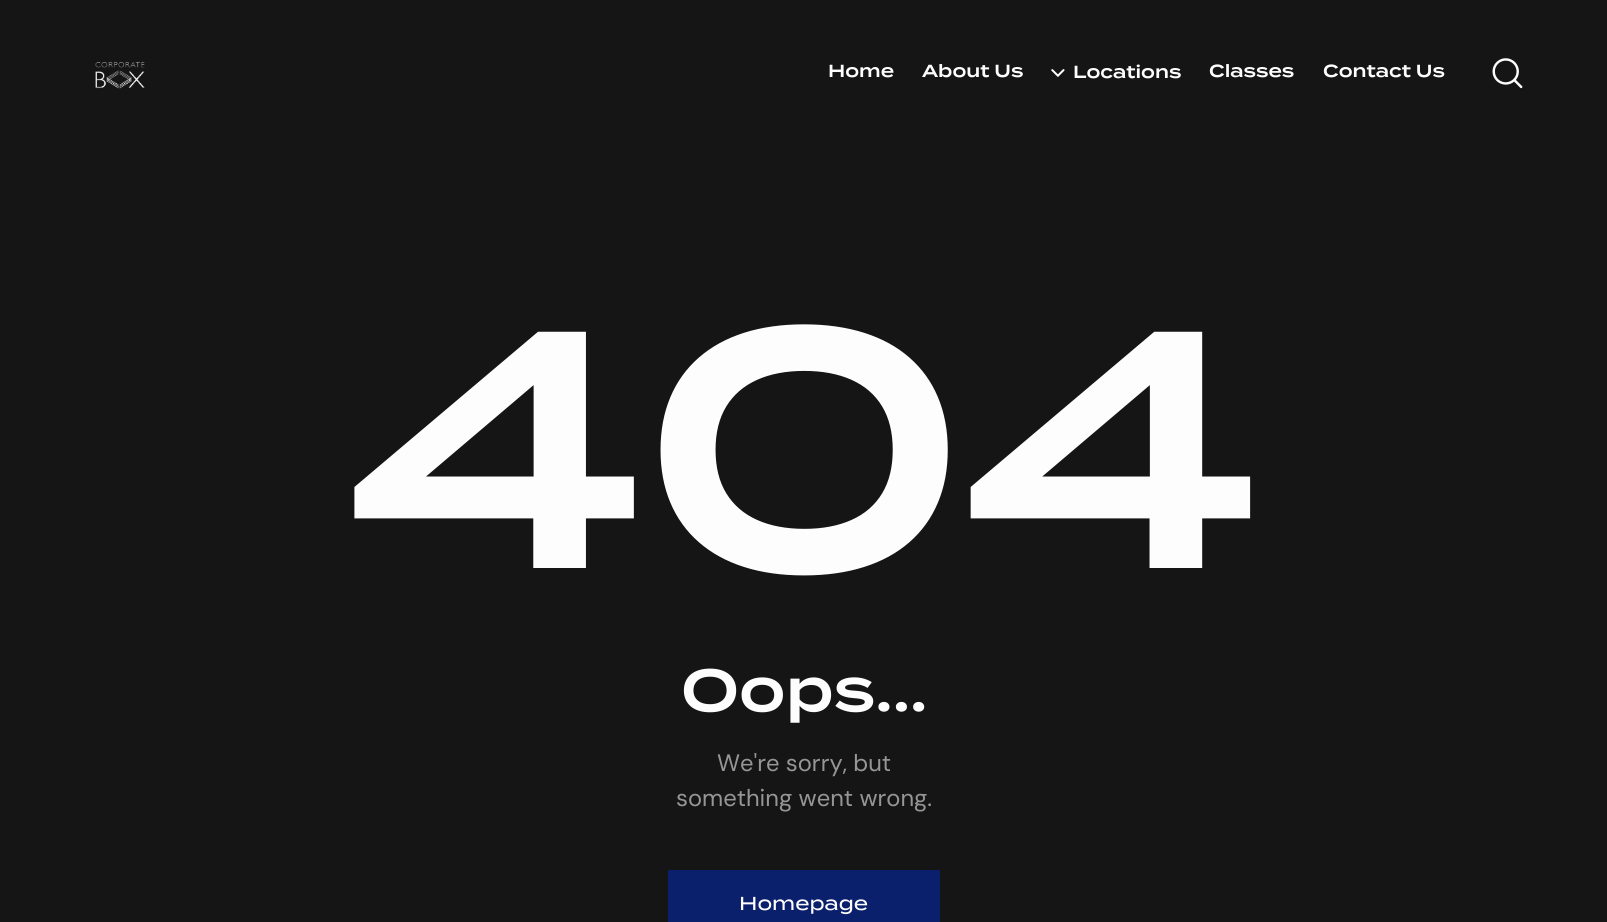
import math
import cairo

surface = cairo.ImageSurface(cairo.Format.RGB24, 1607, 922)
ctx = cairo.Context(surface)
options = cairo.FontOptions()
options.set_hint_metrics(cairo.HintMetrics.OFF)
options.set_hint_style(cairo.HintStyle.NONE)
ctx.set_font_options(options)
ctx.set_miter_limit(4)


def ink(r, g, b):
    ctx.set_source_rgb(r / 255, g / 255, b / 255)


def write(x, y, s, family, size, color, bold=False, italic=False):
    ctx.select_font_face(family, cairo.FontSlant.ITALIC if italic else cairo.FontSlant.NORMAL, cairo.FontWeight.BOLD if bold else cairo.FontWeight.NORMAL)
    ctx.set_font_size(size)
    ink(*color)
    ctx.move_to(x, y)
    ctx.show_text(s)


def block(x, y, w, h, *color):
    ink(*color)
    ctx.rectangle(x, y, w, h)
    ctx.fill()


def paste(path, x, y, w, h):
    ctx.save()
    ctx.set_source_surface(cairo.ImageSurface.create_from_png(path), x, y)
    ctx.rectangle(x, y, w, h)
    ctx.fill()
    ctx.restore()


s1 = dict(family="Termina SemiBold", size=17.5, color=(253, 253, 253))
s2 = dict(family="Termina SemiBold", size=337.5, color=(253, 253, 253))
s3 = dict(family="Termina SemiBold", size=58.75, color=(253, 253, 253))
s4 = dict(family="DM Sans", size=23.75, color=(150, 150, 150))
s5 = dict(family="Termina Medium", size=18.75, color=(253, 253, 253))

ink(21, 21, 21)
ctx.paint()
paste("pic1.png", 95, 61, 50, 28)
write(828, 77, "Home", **s1)
write(922, 77, "About Us", **s1)
paste("pic2.png", 1051, 69, 14, 8)
write(1073, 78, "Locations", **s1)
write(1209, 77, "Classes", **s1)
write(1323, 77, "Contact Us", **s1)
paste("pic3.png", 1492, 58, 31, 31)
write(348, 568, "404", **s2)
write(681, 711, "Oops...", **s3)
write(717, 771, "We're sorry, but", **s4)
write(676, 806, "something went wrong.", **s4)
block(668, 870, 272, 52, 11, 32, 108)
write(739, 910, "Homepage", **s5)
surface.write_to_png("screenshot.png")
